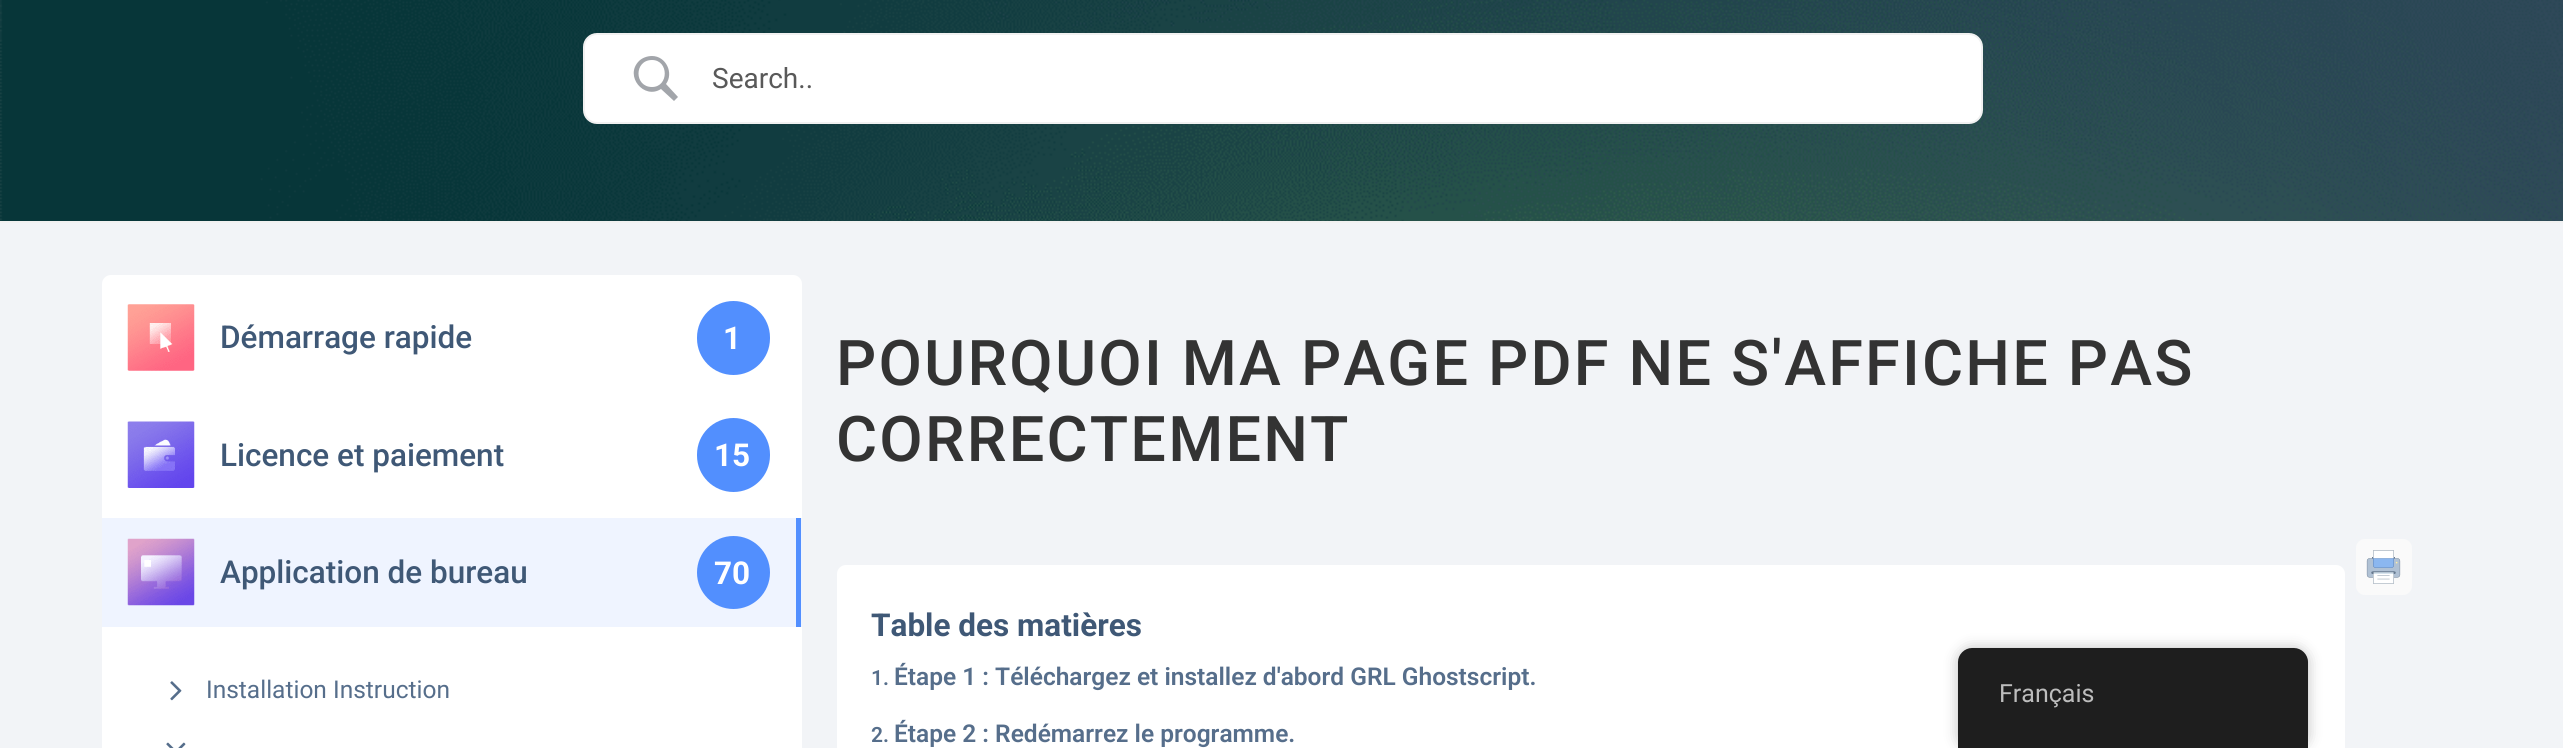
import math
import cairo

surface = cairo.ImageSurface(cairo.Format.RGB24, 2563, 748)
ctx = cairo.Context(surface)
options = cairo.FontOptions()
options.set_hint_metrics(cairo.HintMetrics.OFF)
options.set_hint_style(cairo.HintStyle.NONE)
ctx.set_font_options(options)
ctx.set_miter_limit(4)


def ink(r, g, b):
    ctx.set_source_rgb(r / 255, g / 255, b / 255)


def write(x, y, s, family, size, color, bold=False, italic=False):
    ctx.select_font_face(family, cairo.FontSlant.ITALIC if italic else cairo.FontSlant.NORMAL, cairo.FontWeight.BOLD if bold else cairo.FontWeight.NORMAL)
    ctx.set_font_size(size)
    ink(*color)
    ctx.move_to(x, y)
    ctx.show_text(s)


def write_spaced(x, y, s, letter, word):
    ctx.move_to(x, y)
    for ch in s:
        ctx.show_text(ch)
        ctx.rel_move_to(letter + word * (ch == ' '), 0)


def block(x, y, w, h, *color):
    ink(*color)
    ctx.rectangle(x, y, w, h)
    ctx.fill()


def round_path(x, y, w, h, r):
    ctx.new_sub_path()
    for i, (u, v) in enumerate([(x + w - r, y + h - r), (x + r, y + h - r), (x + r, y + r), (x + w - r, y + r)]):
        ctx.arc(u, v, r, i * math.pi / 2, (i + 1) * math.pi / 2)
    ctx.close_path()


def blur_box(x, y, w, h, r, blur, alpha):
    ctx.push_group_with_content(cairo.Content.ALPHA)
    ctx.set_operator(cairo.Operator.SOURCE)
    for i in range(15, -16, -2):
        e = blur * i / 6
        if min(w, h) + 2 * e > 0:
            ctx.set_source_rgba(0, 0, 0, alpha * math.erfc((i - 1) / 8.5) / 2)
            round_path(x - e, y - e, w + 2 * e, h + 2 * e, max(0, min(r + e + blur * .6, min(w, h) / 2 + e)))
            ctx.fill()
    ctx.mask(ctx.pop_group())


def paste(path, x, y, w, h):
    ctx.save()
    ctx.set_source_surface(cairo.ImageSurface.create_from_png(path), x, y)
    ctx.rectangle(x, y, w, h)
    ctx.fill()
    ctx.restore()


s1 = dict(family="Roboto", size=28, color=(89, 89, 89))
s2 = dict(family="Roboto Medium", size=31.5, color=(63, 88, 118))
s3 = dict(family="Roboto", size=31.5, color=(255, 255, 255), bold=True)
s4 = dict(family="Roboto", size=24.5, color=(86, 110, 139))
s5 = dict(family="Roboto", size=31.5, color=(63, 88, 118), bold=True)
s6 = dict(family="Roboto SemiBold", size=21, color=(86, 110, 139))
s7 = dict(family="Roboto SemiBold", size=24.5, color=(86, 110, 139))
s8 = dict(family="Roboto", size=25, color=(189, 189, 189))

ink(242, 244, 247)
ctx.paint()
paste("pic1.png", 0, 0, 2563, 221)
block(0, 221, 2563, 2, 241, 241, 241)
ink(255, 255, 255)
round_path(584, 34, 1398, 89, 13)
ctx.fill_preserve()
ink(241, 241, 241)
ctx.stroke()
ink(162, 165, 170)
ctx.new_path()
ctx.move_to(652, 56)
ctx.curve_to(647, 56, 642, 58, 639, 61)
ctx.curve_to(624, 76, 644, 100, 661, 89)
ctx.line_to(674, 101)
ctx.line_to(678, 97)
ctx.line_to(666, 84)
ctx.curve_to(674, 73, 666, 56, 652, 56)
ctx.close_path()
ctx.move_to(652, 60)
ctx.curve_to(669, 60, 669, 87, 652, 87)
ctx.curve_to(634, 87, 634, 60, 652, 60)
ctx.close_path()
ctx.fill()
write(712, 88, "Search..", **s1)
ink(255, 255, 255)
round_path(102, 275, 700, 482, 9)
ctx.fill()
paste("pic2.png", 127, 304, 68, 67)
write(220, 348, "Démarrage rapide", **s2)
ink(82, 143, 254)
round_path(697, 301, 73, 74, 36.5)
ctx.fill()
write(723, 349, "1", **s3)
paste("pic3.png", 127, 421, 68, 67)
write(220, 466, "Licence et paiement", **s2)
ink(82, 143, 254)
round_path(697, 418, 73, 74, 36.5)
ctx.fill()
write(714, 466, "15", **s3)
block(102, 518, 700, 109, 239, 244, 255)
block(796, 518, 5, 109, 82, 143, 255)
paste("pic4.png", 127, 538, 68, 68)
write(220, 583, "Application de bureau", **s2)
ink(82, 143, 254)
ctx.new_path()
ctx.arc(733.5, 572.5, 36.5, 0, 2 * math.pi)
ctx.fill()
write(714, 584, "70", **s3)
paste("pic5.png", 170, 681, 12, 20)
write(206, 698, "Installation Instruction", **s4)
paste("pic6.png", 166, 742, 20, 6)
ctx.select_font_face("Roboto Medium")
ctx.set_font_size(63)
ink(51, 51, 51)
write_spaced(836, 385, "POURQUOI MA PAGE PDF NE S'AFFICHE PAS", 2.2, 0)
write_spaced(836, 461, "CORRECTEMENT", 2.2, 0)
ink(250, 250, 250)
round_path(2356, 539, 56, 56, 9)
ctx.fill()
paste("pic7.png", 2366, 550, 35, 34)
ink(255, 255, 255)
round_path(837, 565, 1508, 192, 9)
ctx.fill()
write(871, 636, "Table des matières", **s5)
write(871, 685, "1.", **s6)
write(894, 685, "Étape 1 : Téléchargez et installez d'abord GRL Ghostscript.", **s7)
write(871, 742, "2.", **s6)
write(894, 742, "Étape 2 : Redémarrez le programme.", **s7)
ink(0, 0, 0)
blur_box(1958, 648, 350, 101, 14, 7, 0.25)
ink(30, 30, 30)
ctx.new_path()
ctx.move_to(1972, 648)
ctx.line_to(2294, 648)
ctx.curve_to(2301.5, 648, 2308, 654.5, 2308, 662)
ctx.line_to(2308, 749)
ctx.line_to(1958, 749)
ctx.line_to(1958, 662)
ctx.curve_to(1958, 654.5, 1964.5, 648, 1972, 648)
ctx.close_path()
ctx.fill()
write(1999, 702, "Français", **s8)
surface.write_to_png("screenshot.png")
